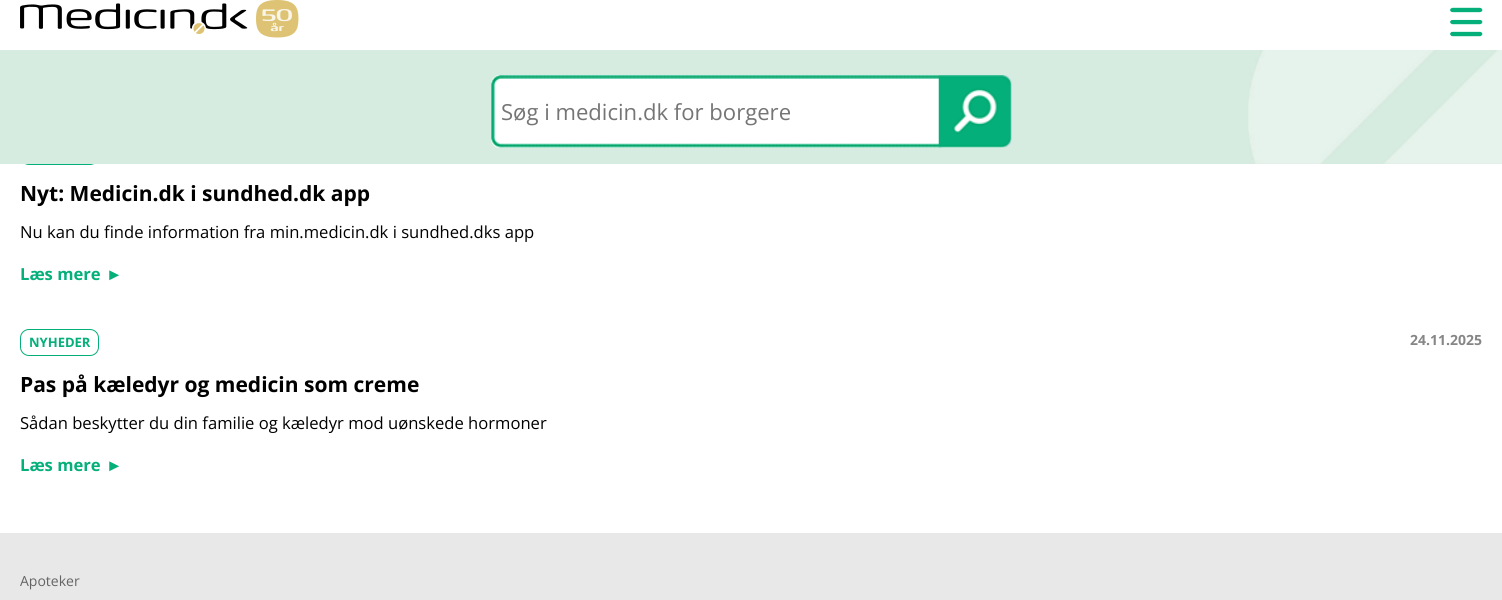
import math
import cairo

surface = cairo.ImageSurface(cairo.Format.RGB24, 1502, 600)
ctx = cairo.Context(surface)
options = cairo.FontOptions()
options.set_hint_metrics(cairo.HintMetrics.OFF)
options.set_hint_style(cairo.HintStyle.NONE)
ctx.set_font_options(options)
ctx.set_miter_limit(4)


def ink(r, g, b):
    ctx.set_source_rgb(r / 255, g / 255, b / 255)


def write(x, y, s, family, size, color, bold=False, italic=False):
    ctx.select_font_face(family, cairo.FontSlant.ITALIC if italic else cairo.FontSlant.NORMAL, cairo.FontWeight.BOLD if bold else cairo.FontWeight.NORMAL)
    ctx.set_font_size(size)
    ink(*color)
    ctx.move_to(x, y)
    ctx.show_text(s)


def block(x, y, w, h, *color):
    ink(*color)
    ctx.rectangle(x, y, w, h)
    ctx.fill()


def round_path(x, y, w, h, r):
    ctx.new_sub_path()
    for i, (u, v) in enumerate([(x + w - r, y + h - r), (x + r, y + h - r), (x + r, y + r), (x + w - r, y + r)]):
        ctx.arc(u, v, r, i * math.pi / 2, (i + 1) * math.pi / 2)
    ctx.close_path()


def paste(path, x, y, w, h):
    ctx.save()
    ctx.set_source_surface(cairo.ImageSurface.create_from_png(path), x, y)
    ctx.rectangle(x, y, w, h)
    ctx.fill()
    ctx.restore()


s1 = dict(family="Open Sans", size=22.1, color=(117, 117, 117))
s2 = dict(family="Open Sans", size=21, color=(0, 0, 0), bold=True)
s3 = dict(family="Open Sans", size=16.6, color=(0, 0, 0))
s4 = dict(family="Open Sans", size=16.6, color=(5, 175, 122), bold=True)
s5 = dict(family="Liberation Sans", size=16.6, color=(5, 175, 122), bold=True)
s6 = dict(family="Open Sans", size=13, color=(5, 175, 122), bold=True)
s7 = dict(family="Open Sans", size=14, color=(134, 134, 134), bold=True)
s8 = dict(family="Open Sans", size=14, color=(100, 100, 100))

ink(255, 255, 255)
ctx.paint()
paste("pic1.png", 20, 0, 279, 38)
paste("pic2.png", 1450, 7, 33, 30)
round_path(20.5, 138.5, 78, 26, 8.5)
ink(5, 175, 122)
ctx.set_line_width(1)
ctx.stroke()
block(0, 50, 1502, 114, 214, 236, 224)
paste("pic3.png", 1248, 50, 254, 114)
ink(255, 255, 255)
ctx.new_path()
ctx.move_to(500, 75)
ctx.line_to(941, 75)
ctx.line_to(941, 148)
ctx.line_to(500, 148)
ctx.curve_to(495, 148, 491, 144, 491, 139)
ctx.line_to(491, 84)
ctx.curve_to(491, 79, 495, 75, 500, 75)
ctx.close_path()
ctx.fill()
paste("pic4.png", 491, 75, 451, 73)
write(501, 120, "Søg i medicin.dk for borgere", **s1)
paste("pic5.png", 938, 75, 74, 73)
write(20, 201, "Nyt: Medicin.dk i sundhed.dk app", **s2)
write(20, 238, "Nu kan du finde information fra min.medicin.dk i sundhed.dks app", **s3)
write(20, 280, "Læs mere", **s4)
write(106, 280, "►", **s5)
round_path(20.5, 329.5, 78, 26, 8.5)
ctx.stroke()
write(29, 347, "NYHEDER", **s6)
write(1410, 345, "24.11.2025", **s7)
write(20, 392, "Pas på kæledyr og medicin som creme", **s2)
write(20, 429, "Sådan beskytter du din familie og kæledyr mod uønskede hormoner", **s3)
write(20, 471, "Læs mere", **s4)
write(106, 471, "►", **s5)
block(0, 533, 1502, 67, 232, 232, 232)
write(20, 586, "Apoteker", **s8)
surface.write_to_png("screenshot.png")
